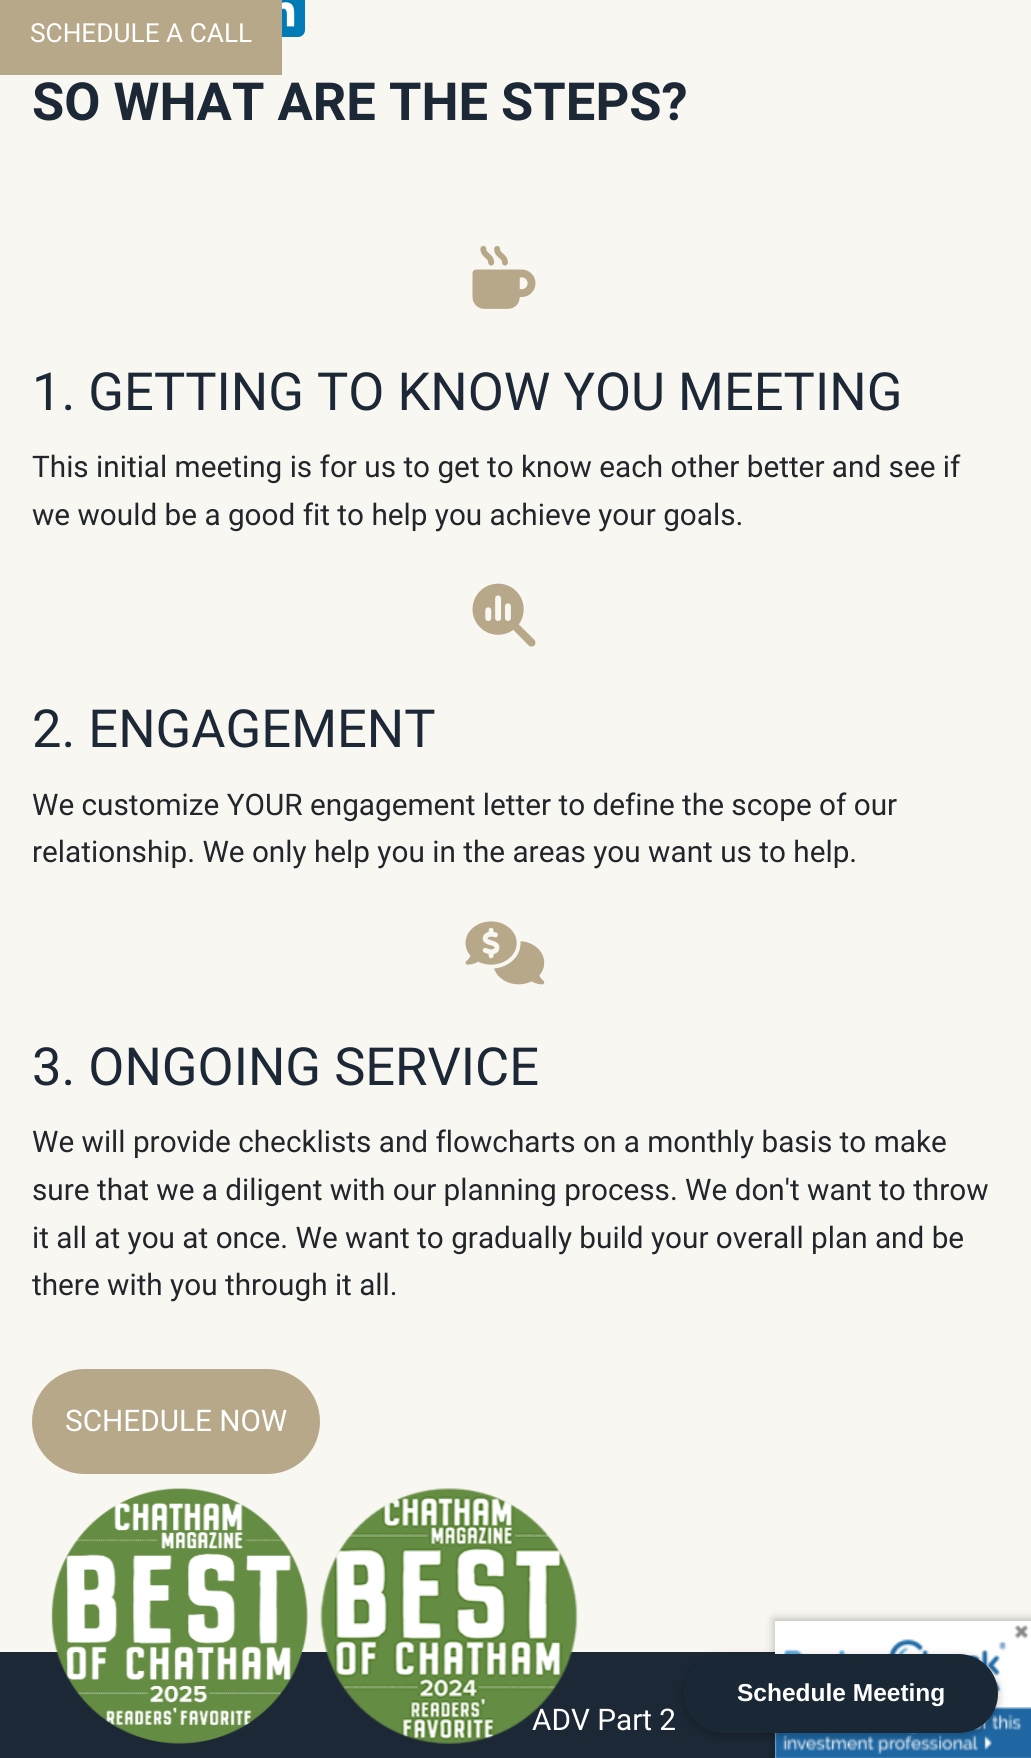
import math
import cairo

surface = cairo.ImageSurface(cairo.Format.RGB24, 1031, 1758)
ctx = cairo.Context(surface)
options = cairo.FontOptions()
options.set_hint_metrics(cairo.HintMetrics.OFF)
options.set_hint_style(cairo.HintStyle.NONE)
ctx.set_font_options(options)
ctx.set_miter_limit(4)


def ink(r, g, b):
    ctx.set_source_rgb(r / 255, g / 255, b / 255)


def write(x, y, s, family, size, color, bold=False, italic=False):
    ctx.select_font_face(family, cairo.FontSlant.ITALIC if italic else cairo.FontSlant.NORMAL, cairo.FontWeight.BOLD if bold else cairo.FontWeight.NORMAL)
    ctx.set_font_size(size)
    ink(*color)
    ctx.move_to(x, y)
    ctx.show_text(s)


def block(x, y, w, h, *color):
    ink(*color)
    ctx.rectangle(x, y, w, h)
    ctx.fill()


def round_path(x, y, w, h, r):
    ctx.new_sub_path()
    for i, (u, v) in enumerate([(x + w - r, y + h - r), (x + r, y + h - r), (x + r, y + r), (x + w - r, y + r)]):
        ctx.arc(u, v, r, i * math.pi / 2, (i + 1) * math.pi / 2)
    ctx.close_path()


def blur_box(x, y, w, h, r, blur, alpha):
    ctx.push_group_with_content(cairo.Content.ALPHA)
    ctx.set_operator(cairo.Operator.SOURCE)
    for i in range(15, -16, -2):
        e = blur * i / 6
        if min(w, h) + 2 * e > 0:
            ctx.set_source_rgba(0, 0, 0, alpha * math.erfc((i - 1) / 8.5) / 2)
            round_path(x - e, y - e, w + 2 * e, h + 2 * e, max(0, min(r + e + blur * .6, min(w, h) / 2 + e)))
            ctx.fill()
    ctx.mask(ctx.pop_group())


def paste(path, x, y, w, h):
    ctx.save()
    ctx.set_source_surface(cairo.ImageSurface.create_from_png(path), x, y)
    ctx.rectangle(x, y, w, h)
    ctx.fill()
    ctx.restore()


s1 = dict(family="Roboto", size=26.25, color=(255, 255, 255))
s2 = dict(family="Roboto", size=52.5, color=(28, 40, 54), bold=True)
s3 = dict(family="Roboto", size=52.5, color=(28, 40, 54))
s4 = dict(family="Roboto", size=29.75, color=(34, 38, 43))
s5 = dict(family="Roboto", size=29.75, color=(255, 255, 255))
s6 = dict(family="Liberation Sans", size=24.5, color=(255, 255, 255), bold=True)

ink(249, 247, 242)
ctx.paint()
ink(0, 123, 181)
round_path(249, -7, 56, 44, 7)
ctx.fill()
block(0, 0, 282, 75, 183, 168, 137)
write(30, 42, "SCHEDULE A CALL", **s1)
paste("pic1.png", 282, 2, 13, 25)
write(32, 120, "SO WHAT ARE THE STEPS?", **s2)
paste("pic2.png", 472, 245, 64, 64)
write(32, 410, "1. GETTING TO KNOW YOU MEETING", **s3)
write(32, 477, "This initial meeting is for us to get to know each other better and see if", **s4)
write(32, 525, "we would be a good fit to help you achieve your goals.", **s4)
paste("pic3.png", 472, 583, 64, 64)
write(32, 747, "2. ENGAGEMENT", **s3)
write(32, 815, "We customize YOUR engagement letter to define the scope of our", **s4)
write(32, 862, "relationship. We only help you in the areas you want us to help.", **s4)
paste("pic4.png", 465, 921, 80, 64)
write(32, 1085, "3. ONGOING SERVICE", **s3)
write(32, 1152, "We will provide checklists and flowcharts on a monthly basis to make", **s4)
write(32, 1200, "sure that we a diligent with our planning process. We don't want to throw", **s4)
write(32, 1248, "it all at you at once. We want to gradually build your overall plan and be", **s4)
write(32, 1295, "there with you through it all.", **s4)
ink(183, 168, 137)
round_path(32, 1369, 288, 105, 52.5)
ctx.fill()
write(65, 1431, "SCHEDULE NOW", **s5)
block(0, 1652, 775, 106, 28, 40, 54)
paste("pic5.png", 51, 1488, 258, 256)
write(532, 1730, "ADV Part 2", **s5)
paste("pic6.png", 320, 1488, 258, 256)
block(775, 1621, 256, 137, 255, 255, 255)
ctx.save()
ctx.set_fill_rule(cairo.FillRule.EVEN_ODD)
ctx.new_path()
ctx.move_to(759, 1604)
ctx.line_to(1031, 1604)
ctx.line_to(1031, 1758)
ctx.line_to(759, 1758)
ctx.close_path()
ctx.move_to(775, 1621)
ctx.line_to(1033, 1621)
ctx.line_to(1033, 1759)
ctx.line_to(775, 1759)
ctx.close_path()
ctx.clip()
ink(0, 0, 0)
blur_box(774, 1619, 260, 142, 0, 4.5, 0.25)
ctx.restore()
paste("pic7.png", 774, 1625, 257, 133)
ink(0, 0, 0)
blur_box(684, 1657, 314, 79, 39.5, 4.5, 0.25)
ink(26, 40, 53)
round_path(684, 1654, 314, 79, 39.5)
ctx.fill()
write(737, 1701, "Schedule Meeting", **s6)
surface.write_to_png("screenshot.png")
